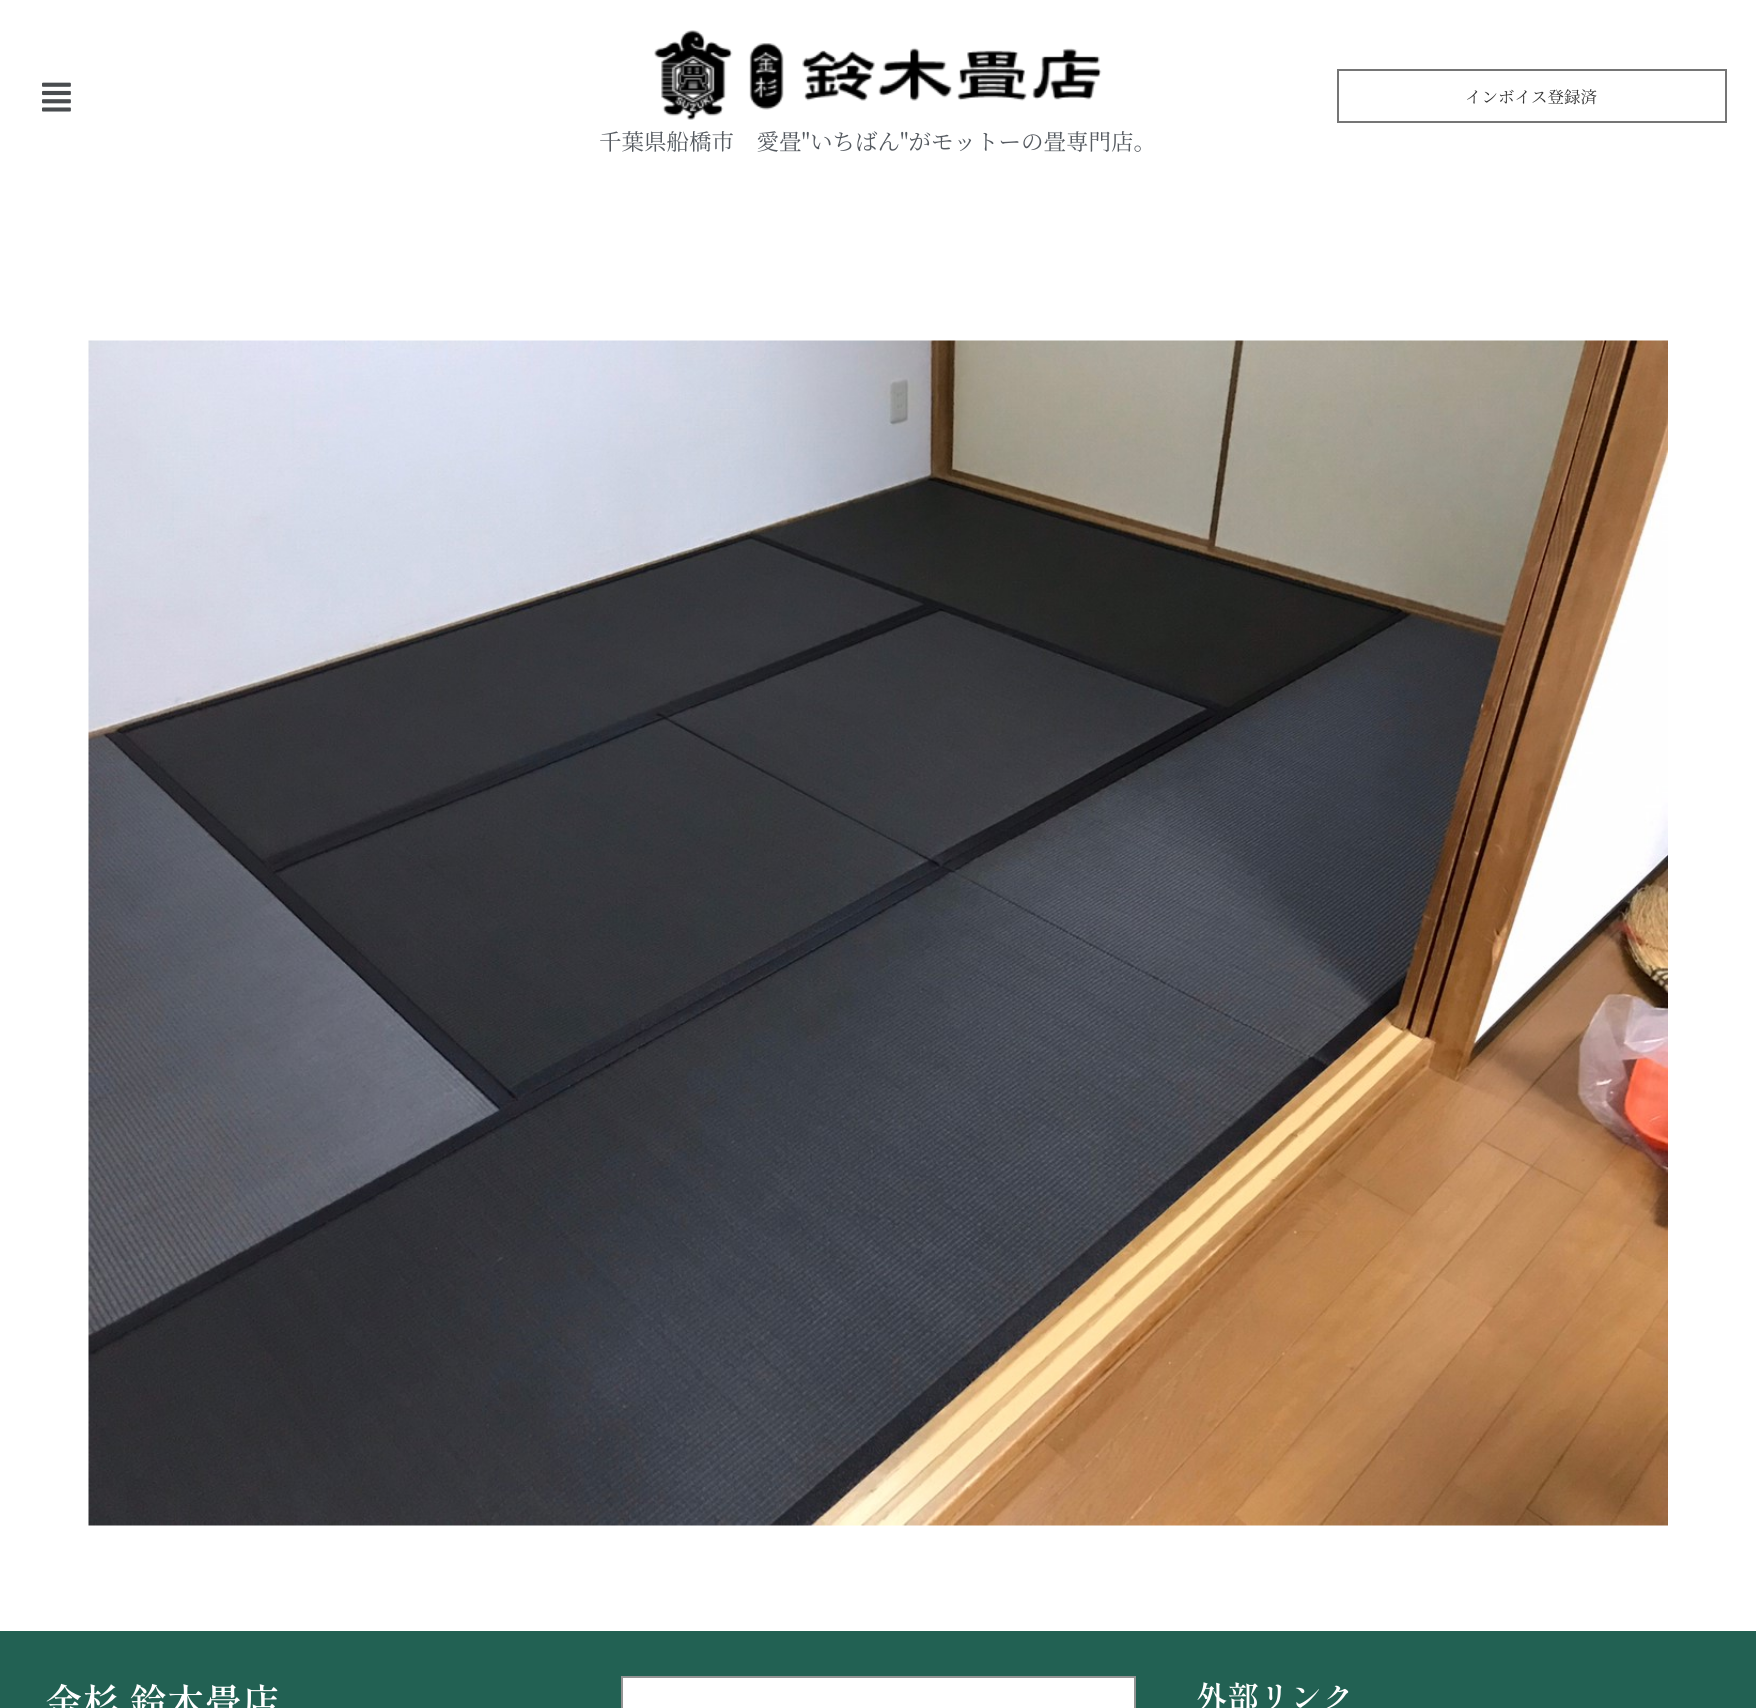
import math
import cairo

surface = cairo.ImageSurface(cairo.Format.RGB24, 1756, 1708)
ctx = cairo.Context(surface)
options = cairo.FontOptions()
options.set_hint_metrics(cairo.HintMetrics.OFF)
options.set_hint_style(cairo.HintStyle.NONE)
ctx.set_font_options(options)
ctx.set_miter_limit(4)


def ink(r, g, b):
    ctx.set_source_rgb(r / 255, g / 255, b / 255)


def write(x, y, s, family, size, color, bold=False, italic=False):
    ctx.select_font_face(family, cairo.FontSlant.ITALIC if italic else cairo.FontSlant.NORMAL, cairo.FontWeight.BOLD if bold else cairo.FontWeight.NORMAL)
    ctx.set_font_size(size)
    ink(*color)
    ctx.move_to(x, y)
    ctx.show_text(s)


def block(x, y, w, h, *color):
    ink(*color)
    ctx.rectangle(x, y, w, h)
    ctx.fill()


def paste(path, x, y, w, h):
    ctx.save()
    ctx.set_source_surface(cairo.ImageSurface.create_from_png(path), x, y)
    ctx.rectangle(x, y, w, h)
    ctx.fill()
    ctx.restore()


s1 = dict(family="Noto Serif JP", size=16.5, color=(49, 49, 49))
s2 = dict(family="Noto Serif JP", size=22.5, color=(84, 89, 95))
s3 = dict(family="Shippori Mincho SemiBold", size=37.5, color=(255, 255, 255))
s4 = dict(family="Shippori Mincho SemiBold", size=31.5, color=(255, 255, 255))

ink(255, 255, 255)
ctx.paint()
paste("pic1.png", 42, 82, 29, 30)
ctx.rectangle(1338, 70, 388, 52)
ink(117, 117, 117)
ctx.stroke()
write(1465, 103, "インボイス登録済", **s1)
paste("pic2.png", 654, 30, 448, 90)
write(599, 150, "千葉県船橋市　愛畳\"いちばん\"がモットーの畳専門店。", **s2)
paste("pic3.png", 88, 340, 1580, 1186)
block(0, 1631, 1756, 77, 34, 97, 83)
write(45, 1716, "金杉 鈴木畳店", **s3)
ctx.rectangle(622, 1677, 513, 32)
ctx.fill_preserve()
ink(148, 148, 148)
ctx.stroke()
write(1196, 1709, "外部リンク", **s4)
surface.write_to_png("screenshot.png")
